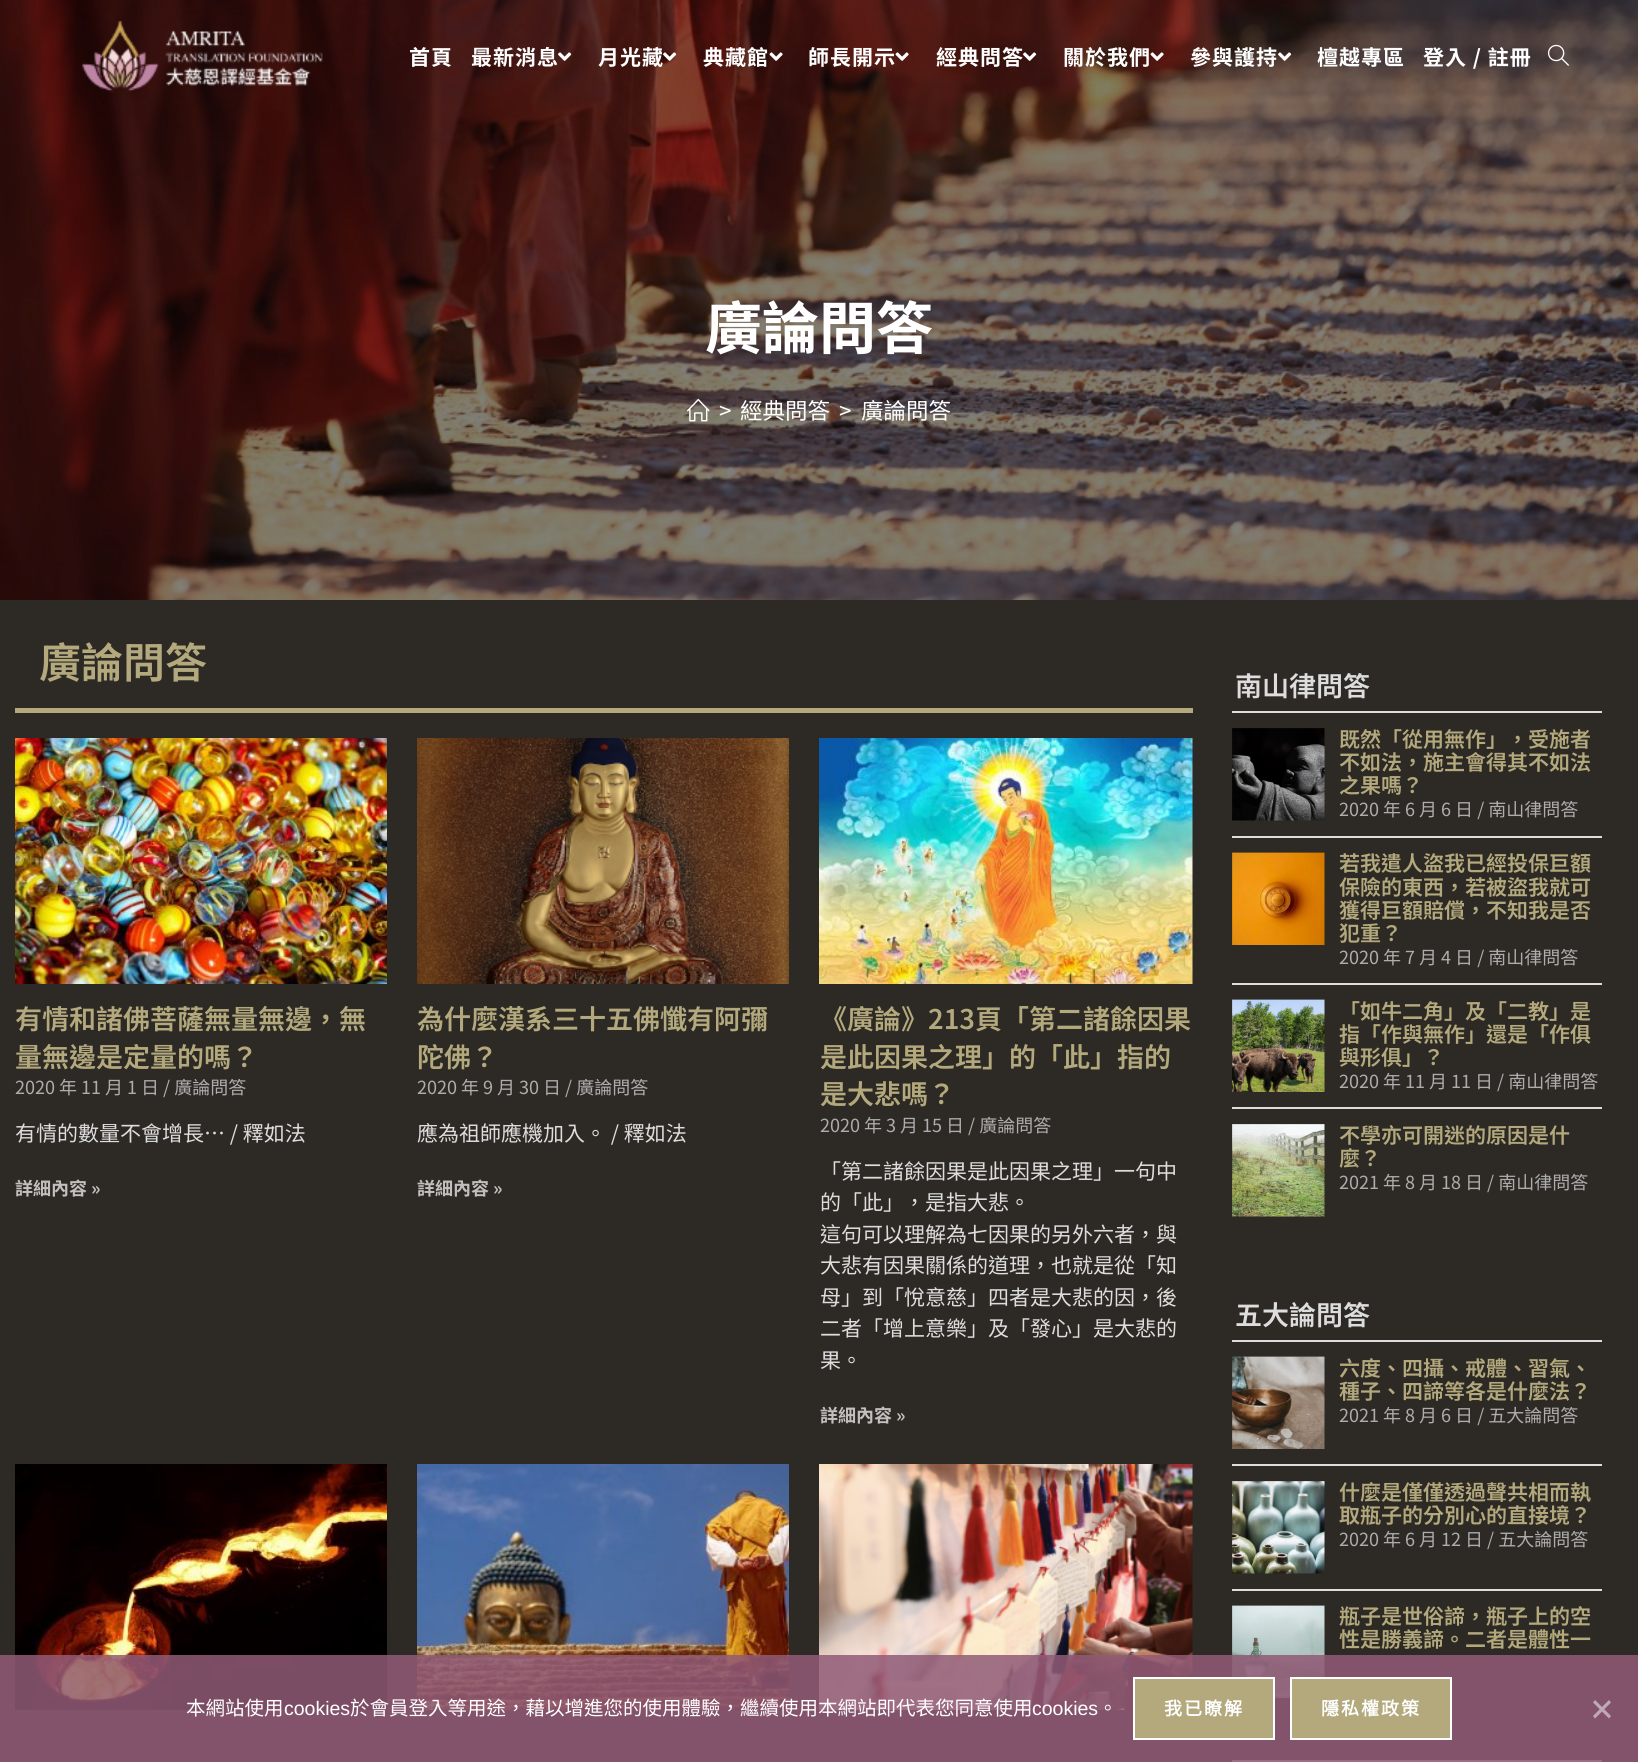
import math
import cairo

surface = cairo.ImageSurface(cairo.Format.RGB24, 1638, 1762)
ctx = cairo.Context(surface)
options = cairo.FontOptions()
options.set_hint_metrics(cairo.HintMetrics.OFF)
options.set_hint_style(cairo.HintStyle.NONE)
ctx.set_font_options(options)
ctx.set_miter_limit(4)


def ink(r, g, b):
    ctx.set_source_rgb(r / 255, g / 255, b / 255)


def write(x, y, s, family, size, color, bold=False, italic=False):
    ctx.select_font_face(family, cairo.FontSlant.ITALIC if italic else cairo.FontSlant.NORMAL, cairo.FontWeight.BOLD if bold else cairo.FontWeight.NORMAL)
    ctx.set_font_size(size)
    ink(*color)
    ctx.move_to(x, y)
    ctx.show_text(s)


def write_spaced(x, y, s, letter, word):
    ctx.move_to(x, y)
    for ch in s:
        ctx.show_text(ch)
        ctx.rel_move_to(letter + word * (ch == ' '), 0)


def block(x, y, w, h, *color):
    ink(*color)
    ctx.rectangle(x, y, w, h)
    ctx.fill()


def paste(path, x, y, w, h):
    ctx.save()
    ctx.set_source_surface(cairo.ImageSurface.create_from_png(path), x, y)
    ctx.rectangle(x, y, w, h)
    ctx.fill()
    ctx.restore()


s1 = dict(family="Noto Sans TC", size=57, color=(255, 255, 255), bold=True)
s2 = dict(family="Noto Sans TC", size=22.5, color=(255, 255, 255))
s3 = dict(family="Noto Sans TC SemiBold", size=42, color=(180, 169, 125))
s4 = dict(family="Noto Sans TC SemiBold", size=27, color=(180, 169, 125))
s5 = dict(family="Noto Sans TC", size=18, color=(173, 173, 173))
s6 = dict(family="Noto Sans TC", size=21, color=(221, 221, 221))
s7 = dict(family="Noto Sans TC", size=18, color=(196, 191, 191), bold=True)
s8 = dict(family="Noto Sans TC SemiBold", size=27, color=(221, 221, 221))
s9 = dict(family="Noto Sans TC SemiBold", size=21, color=(180, 169, 125))
s10 = dict(family="Noto Sans CJK TC", size=19.5, color=(255, 255, 255))
s11 = dict(family="Liberation Sans", size=19.5, color=(255, 255, 255))

ink(45, 42, 37)
ctx.paint()
paste("pic10.png", 0, 0, 1638, 600)
paste("pic1.png", 82, 21, 241, 71)
ctx.select_font_face("Noto Sans TC", cairo.FontSlant.NORMAL, cairo.FontWeight.BOLD)
ctx.set_font_size(21)
ink(255, 255, 255)
write_spaced(409, 65, "首頁", 1, 0)
write_spaced(471, 65, "最新消息", 1, 0)
paste("pic2.png", 558, 52, 14, 9)
write_spaced(598, 65, "月光藏", 1, 0)
paste("pic3.png", 663, 52, 14, 9)
write_spaced(703, 65, "典藏館", 1, 0)
paste("pic4.png", 769, 52, 14, 9)
write_spaced(808, 65, "師長開示", 1, 0)
paste("pic5.png", 895, 52, 14, 9)
write_spaced(936, 65, "經典問答", 1, 0)
paste("pic6.png", 1023, 52, 14, 9)
write_spaced(1063, 65, "關於我們", 1, 0)
paste("pic7.png", 1150, 52, 14, 9)
write_spaced(1190, 65, "參與護持", 1, 0)
paste("pic8.png", 1278, 52, 14, 9)
write_spaced(1317, 65, "檀越專區", 1, 0)
write_spaced(1423, 65, "登入 / 註冊", 1, 0)
paste("pic9.png", 1548, 44, 21, 22)
write(705, 349, "廣論問答", **s1)
paste("pic11.png", 687, 398, 23, 24)
write(719, 419, ">", **s2)
write(740, 419, "經典問答", **s2)
write(839, 419, ">", **s2)
write(861, 419, "廣論問答", **s2)
write(39, 678, "廣論問答", **s3)
block(15, 708, 1178, 5, 180, 169, 125)
paste("pic12.png", 15, 738, 372, 246)
write(15, 1029, "有情和諸佛菩薩無量無邊，無", **s4)
write(15, 1067, "量無邊是定量的嗎？", **s4)
write(15, 1094, "2020 年 11 月 1 日 / 廣論問答", **s5)
write(15, 1141, "有情的數量不會增長… / 釋如法", **s6)
write(15, 1195, "詳細內容 »", **s7)
paste("pic13.png", 417, 738, 372, 246)
write(417, 1029, "為什麼漢系三十五佛懺有阿彌", **s4)
write(417, 1067, "陀佛？", **s4)
write(417, 1094, "2020 年 9 月 30 日 / 廣論問答", **s5)
write(417, 1141, "應為祖師應機加入。 / 釋如法", **s6)
write(417, 1195, "詳細內容 »", **s7)
paste("pic14.png", 819, 738, 374, 246)
write(820, 1029, "《廣論》213頁「第二諸餘因果", **s4)
write(820, 1067, "是此因果之理」的「此」指的", **s4)
write(820, 1104, "是大悲嗎？", **s4)
write(820, 1132, "2020 年 3 月 15 日 / 廣論問答", **s5)
write(820, 1179, "「第二諸餘因果是此因果之理」一句中", **s6)
write(820, 1210, "的「此」，是指大悲。", **s6)
write(820, 1242, "這句可以理解為七因果的另外六者，與", **s6)
write(820, 1273, "大悲有因果關係的道理，也就是從「知", **s6)
write(820, 1305, "母」到「悅意慈」四者是大悲的因，後", **s6)
write(820, 1336, "二者「增上意樂」及「發心」是大悲的", **s6)
write(820, 1368, "果。", **s6)
write(820, 1422, "詳細內容 »", **s7)
paste("pic15.png", 15, 1464, 372, 246)
paste("pic16.png", 417, 1464, 372, 246)
paste("pic17.png", 819, 1464, 374, 246)
write(1235, 696, "南山律問答", **s8)
block(1232, 711, 370, 2, 221, 221, 221)
paste("pic18.png", 1232, 728, 93, 93)
write(1339, 747, "既然「從用無作」，受施者", **s9)
write(1339, 770, "不如法，施主會得其不如法", **s9)
write(1339, 793, "之果嗎？", **s9)
write(1339, 816, "2020 年 6 月 6 日 / 南山律問答", **s5)
block(1232, 836, 370, 2, 221, 221, 221)
paste("pic19.png", 1232, 852, 93, 93)
write(1339, 871, "若我遣人盜我已經投保巨額", **s9)
write(1339, 895, "保險的東西，若被盜我就可", **s9)
write(1339, 918, "獲得巨額賠償，不知我是否", **s9)
write(1339, 941, "犯重？", **s9)
write(1339, 964, "2020 年 7 月 4 日 / 南山律問答", **s5)
block(1232, 983, 370, 2, 221, 221, 221)
paste("pic20.png", 1232, 999, 93, 93)
write(1339, 1019, "「如牛二角」及「二教」是", **s9)
write(1339, 1042, "指「作與無作」還是「作俱", **s9)
write(1339, 1065, "與形俱」？", **s9)
write(1339, 1088, "2020 年 11 月 11 日 / 南山律問答", **s5)
block(1232, 1107, 370, 2, 221, 221, 221)
paste("pic21.png", 1232, 1124, 93, 93)
write(1339, 1143, "不學亦可開迷的原因是什", **s9)
write(1339, 1166, "麼？", **s9)
write(1339, 1189, "2021 年 8 月 18 日 / 南山律問答", **s5)
write(1235, 1325, "五大論問答", **s8)
block(1232, 1340, 370, 2, 221, 221, 221)
paste("pic22.png", 1232, 1356, 93, 93)
write(1339, 1376, "六度、四攝、戒體、習氣、", **s9)
write(1339, 1399, "種子、四諦等各是什麼法？", **s9)
write(1339, 1422, "2021 年 8 月 6 日 / 五大論問答", **s5)
block(1232, 1464, 370, 2, 221, 221, 221)
paste("pic23.png", 1232, 1481, 93, 93)
write(1339, 1500, "什麼是僅僅透過聲共相而執", **s9)
write(1339, 1523, "取瓶子的分別心的直接境？", **s9)
write(1339, 1546, "2020 年 6 月 12 日 / 五大論問答", **s5)
block(1232, 1589, 370, 2, 221, 221, 221)
paste("pic24.png", 1232, 1605, 93, 93)
write(1339, 1624, "瓶子是世俗諦，瓶子上的空", **s9)
write(1339, 1647, "性是勝義諦。二者是體性一", **s9)
block(1232, 1760, 370, 2, 221, 221, 221)
ctx.set_source_rgba(0.569, 0.357, 0.467, 0.85)
ctx.rectangle(0, 1655, 1638, 107)
ctx.fill()
write(186, 1715, "本網站使用", **s10)
write(284, 1715, "cookies", **s11)
write(350, 1715, "於會員登入等用途，藉以增進您的使用體驗，繼續使用本網站即代表您同意使用", **s10)
write(1032, 1715, "cookies", **s11)
write(1098, 1715, "。", **s10)
ink(180, 169, 125)
ctx.rectangle(1134, 1678, 140, 61)
ctx.fill_preserve()
ink(255, 255, 255)
ctx.stroke()
ctx.select_font_face("Noto Sans CJK TC", cairo.FontSlant.NORMAL, cairo.FontWeight.BOLD)
ctx.set_font_size(18)
write_spaced(1164, 1715, "我已瞭解", 2, 0)
ink(180, 169, 125)
ctx.rectangle(1291, 1678, 160, 61)
ctx.fill_preserve()
ink(255, 255, 255)
ctx.stroke()
write_spaced(1321, 1715, "隱私權政策", 2, 0)
ink(192, 169, 181)
ctx.new_path()
ctx.move_to(1609, 1700)
ctx.line_to(1611, 1702.5)
ctx.line_to(1595, 1718.5)
ctx.line_to(1593, 1716)
ctx.close_path()
ctx.fill()
ctx.new_path()
ctx.move_to(1593, 1702.5)
ctx.line_to(1595, 1700)
ctx.line_to(1611, 1716)
ctx.line_to(1609, 1718.5)
ctx.close_path()
ctx.fill()
surface.write_to_png("screenshot.png")
